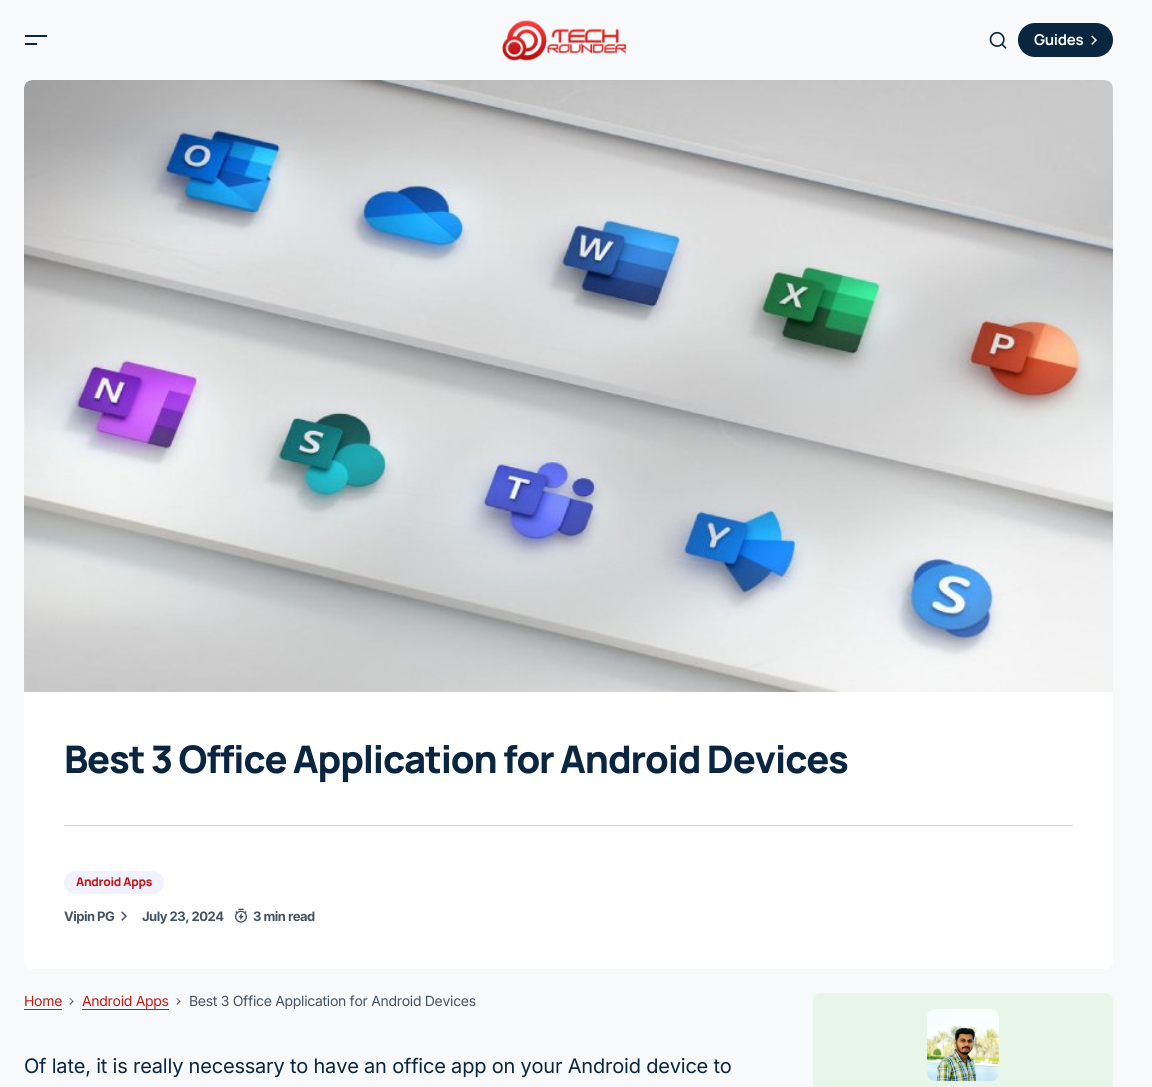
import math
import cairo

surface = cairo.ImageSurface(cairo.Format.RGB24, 1152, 1087)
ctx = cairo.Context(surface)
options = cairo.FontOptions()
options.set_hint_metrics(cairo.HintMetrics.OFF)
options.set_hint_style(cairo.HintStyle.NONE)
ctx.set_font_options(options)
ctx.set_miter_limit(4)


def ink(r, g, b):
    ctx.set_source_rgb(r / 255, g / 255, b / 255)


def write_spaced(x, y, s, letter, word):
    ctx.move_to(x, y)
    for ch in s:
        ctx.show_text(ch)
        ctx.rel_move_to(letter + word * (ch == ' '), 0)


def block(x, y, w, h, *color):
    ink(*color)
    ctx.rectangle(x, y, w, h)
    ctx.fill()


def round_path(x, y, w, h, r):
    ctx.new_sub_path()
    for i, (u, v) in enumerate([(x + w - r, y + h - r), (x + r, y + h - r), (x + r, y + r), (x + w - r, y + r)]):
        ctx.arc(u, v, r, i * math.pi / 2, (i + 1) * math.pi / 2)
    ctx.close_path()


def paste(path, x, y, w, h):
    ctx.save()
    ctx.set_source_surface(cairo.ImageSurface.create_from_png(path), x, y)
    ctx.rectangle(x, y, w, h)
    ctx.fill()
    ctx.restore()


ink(248, 249, 250)
ctx.paint()
block(25, 35, 22, 2, 10, 37, 64)
block(25, 43, 12, 2, 10, 37, 64)
paste("pic1.png", 502, 20, 125, 41)
paste("pic2.png", 989, 31, 18, 18)
round_path(1018, 23, 95, 34, 17)
ctx.fill()
ctx.select_font_face("Manrope", cairo.FontSlant.NORMAL, cairo.FontWeight.BOLD)
ctx.set_font_size(15)
ink(255, 255, 255)
write_spaced(1034, 45, "Guides", -0.25, 0)
paste("pic3.png", 1091, 35, 6, 10)
round_path(24, 80, 1089, 889, 8)
ctx.fill()
paste("pic4.png", 24, 80, 1089, 612)
ctx.select_font_face("Manrope ExtraBold")
ctx.set_font_size(38)
ink(10, 37, 64)
write_spaced(64, 773, "Best 3 Office Application for Android Devices", -1.15, 0)
block(64, 825, 1009, 1, 200, 215, 245)
ink(241, 241, 255)
round_path(64, 871, 100, 23, 11.5)
ctx.fill()
ctx.set_font_size(12)
ink(191, 26, 22)
write_spaced(76, 886, "Android Apps", -0.25, 0)
ctx.select_font_face("Inter", cairo.FontSlant.NORMAL, cairo.FontWeight.BOLD)
ctx.set_font_size(13)
ink(67, 83, 102)
write_spaced(64, 921, "Vipin PG", -0.5, 0)
paste("pic5.png", 121, 911, 6, 10)
write_spaced(142, 921, "July 23, 2024", -0.5, 0)
paste("pic6.png", 235, 908, 12, 15)
write_spaced(253, 921, "3 min read", -0.5, 0)
block(24, 1009, 38, 1, 191, 26, 22)
ctx.select_font_face("Inter")
ctx.set_font_size(14)
write_spaced(24, 1006, "Home", -0.3, 0)
ink(67, 83, 102)
ctx.new_path()
ctx.move_to(70, 998)
ctx.line_to(73.5, 1001.5)
ctx.line_to(73, 1002)
ctx.line_to(69.5, 998.5)
ctx.close_path()
ctx.fill()
ctx.new_path()
ctx.move_to(73, 1000.5)
ctx.line_to(73.5, 1001.5)
ctx.line_to(70, 1005)
ctx.line_to(69.5, 1004)
ctx.close_path()
ctx.fill()
block(82, 1009, 87, 1, 191, 26, 22)
write_spaced(82, 1006, "Android Apps", -0.3, 0)
ink(67, 83, 102)
ctx.new_path()
ctx.move_to(177, 998)
ctx.line_to(180.5, 1001.5)
ctx.line_to(180, 1002)
ctx.line_to(176.5, 998.5)
ctx.close_path()
ctx.fill()
ctx.new_path()
ctx.move_to(180, 1000.5)
ctx.line_to(180.5, 1001.5)
ctx.line_to(177, 1005)
ctx.line_to(176.5, 1004)
ctx.close_path()
ctx.fill()
write_spaced(189, 1006, "Best 3 Office Application for Android Devices", -0.3, 0)
ctx.set_font_size(20)
ink(10, 37, 64)
write_spaced(24, 1073, "Of late, it is really necessary to have an office app on your Android device to", -0.2, 0)
ink(232, 245, 233)
round_path(813, 993, 300, 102, 8)
ctx.fill()
paste("pic7.png", 927, 1009, 72, 72)
surface.write_to_png("screenshot.png")
